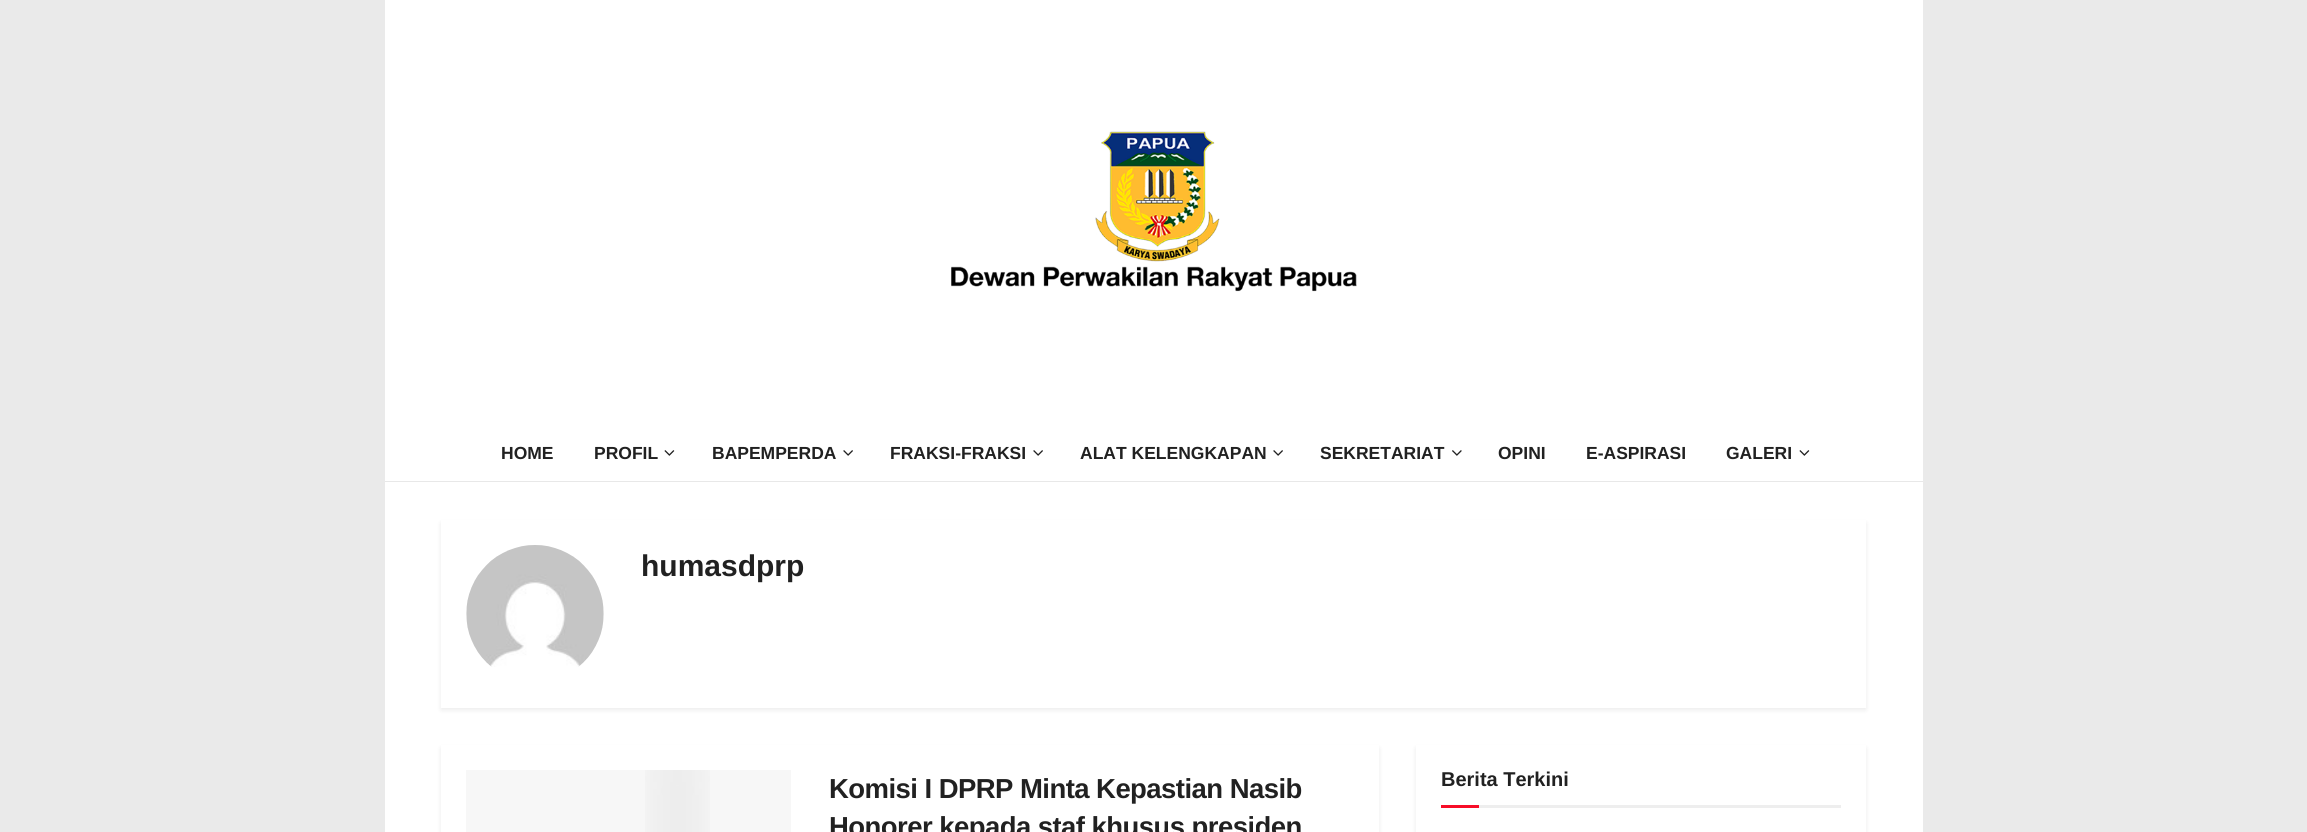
import math
import cairo

surface = cairo.ImageSurface(cairo.Format.RGB24, 2307, 832)
ctx = cairo.Context(surface)
options = cairo.FontOptions()
options.set_hint_metrics(cairo.HintMetrics.OFF)
options.set_hint_style(cairo.HintStyle.NONE)
ctx.set_font_options(options)
ctx.set_miter_limit(4)


def ink(r, g, b):
    ctx.set_source_rgb(r / 255, g / 255, b / 255)


def write(x, y, s, family, size, color, bold=False, italic=False):
    ctx.select_font_face(family, cairo.FontSlant.ITALIC if italic else cairo.FontSlant.NORMAL, cairo.FontWeight.BOLD if bold else cairo.FontWeight.NORMAL)
    ctx.set_font_size(size)
    ink(*color)
    ctx.move_to(x, y)
    ctx.show_text(s)


def write_spaced(x, y, s, letter, word):
    ctx.move_to(x, y)
    for ch in s:
        ctx.show_text(ch)
        ctx.rel_move_to(letter + word * (ch == ' '), 0)


def block(x, y, w, h, *color):
    ink(*color)
    ctx.rectangle(x, y, w, h)
    ctx.fill()


def round_path(x, y, w, h, r):
    ctx.new_sub_path()
    for i, (u, v) in enumerate([(x + w - r, y + h - r), (x + r, y + h - r), (x + r, y + r), (x + w - r, y + r)]):
        ctx.arc(u, v, r, i * math.pi / 2, (i + 1) * math.pi / 2)
    ctx.close_path()


def blur_box(x, y, w, h, r, blur, alpha):
    ctx.push_group_with_content(cairo.Content.ALPHA)
    ctx.set_operator(cairo.Operator.SOURCE)
    for i in range(15, -16, -2):
        e = blur * i / 6
        if min(w, h) + 2 * e > 0:
            ctx.set_source_rgba(0, 0, 0, alpha * math.erfc((i - 1) / 8.5) / 2)
            round_path(x - e, y - e, w + 2 * e, h + 2 * e, max(0, min(r + e + blur * .6, min(w, h) / 2 + e)))
            ctx.fill()
    ctx.mask(ctx.pop_group())


def paste(path, x, y, w, h):
    ctx.save()
    ctx.set_source_surface(cairo.ImageSurface.create_from_png(path), x, y)
    ctx.rectangle(x, y, w, h)
    ctx.fill()
    ctx.restore()


s1 = dict(family="Liberation Sans", size=17.5, color=(33, 33, 33), bold=True)
s2 = dict(family="Liberation Sans", size=30, color=(33, 33, 33), bold=True)
s3 = dict(family="Liberation Sans", size=20, color=(33, 33, 33), bold=True)

ink(234, 234, 234)
ctx.paint()
block(385, 0, 1538, 832, 255, 255, 255)
paste("pic1.png", 951, 131, 406, 161)
block(385, 481, 1538, 1, 232, 232, 232)
write(501, 459, "HOME", **s1)
write(594, 459, "PROFIL", **s1)
paste("pic2.png", 664, 450, 11, 6)
write(712, 459, "BAPEMPERDA", **s1)
paste("pic3.png", 843, 450, 10, 6)
write(890, 459, "FRAKSI-FRAKSI", **s1)
paste("pic3.png", 1033, 450, 10, 6)
write(1080, 459, "ALAT KELENGKAPAN", **s1)
paste("pic3.png", 1273, 450, 10, 6)
write(1320, 459, "SEKRETARIAT", **s1)
paste("pic4.png", 1452, 450, 10, 6)
write(1498, 459, "OPINI", **s1)
write(1586, 459, "E-ASPIRASI", **s1)
write(1726, 459, "GALERI", **s1)
paste("pic2.png", 1799, 450, 11, 6)
ink(0, 0, 0)
blur_box(441, 523, 1425, 187, 0, 2.5, 0.08)
block(441, 520, 1425, 188, 255, 255, 255)
paste("pic5.png", 466, 545, 138, 122)
write(641, 576, "humasdprp", **s2)
ink(0, 0, 0)
blur_box(441, 748, 938, 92, 0, 2.5, 0.08)
block(441, 745, 938, 87, 255, 255, 255)
block(466, 770, 325, 62, 247, 247, 247)
paste("pic6.png", 645, 770, 65, 62)
ctx.set_font_size(27.5)
ink(33, 33, 33)
write_spaced(829, 798, "Komisi I DPRP Minta Kepastian Nasib", -0.55, 0)
write_spaced(829, 836, "Honorer kepada staf khusus presiden", -0.55, 0)
ink(0, 0, 0)
blur_box(1416, 748, 450, 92, 0, 2.5, 0.08)
block(1416, 745, 450, 87, 255, 255, 255)
block(1479, 805, 362, 3, 238, 238, 238)
write(1441, 786, "Berita Terkini", **s3)
block(1441, 805, 38, 3, 247, 13, 40)
surface.write_to_png("screenshot.png")
